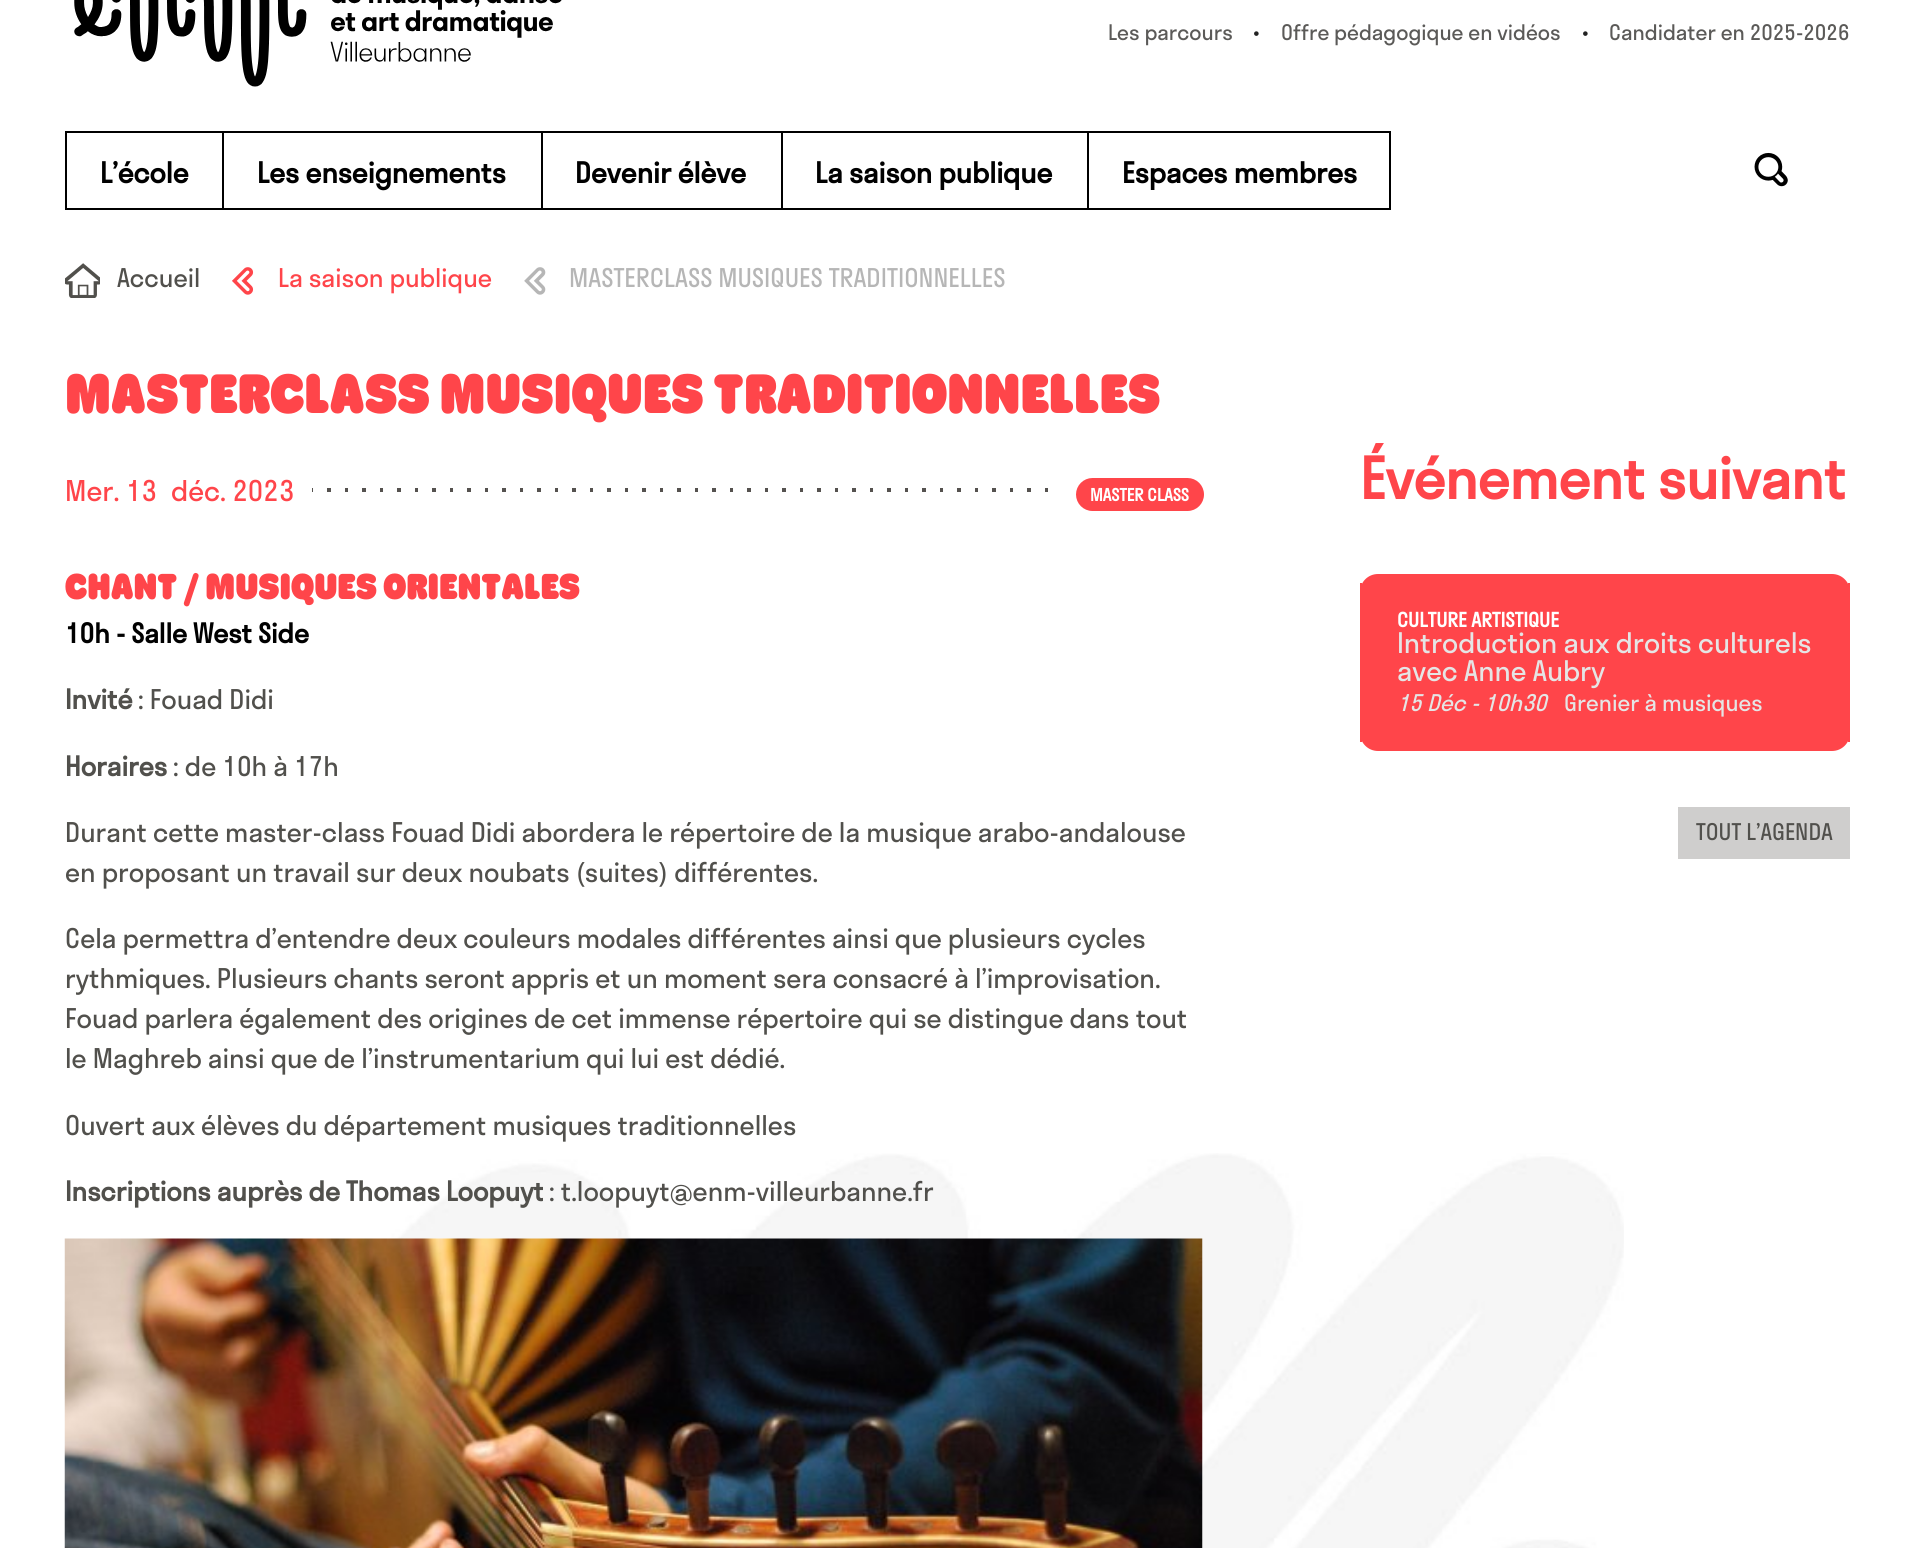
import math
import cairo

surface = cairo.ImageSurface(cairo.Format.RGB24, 1914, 1548)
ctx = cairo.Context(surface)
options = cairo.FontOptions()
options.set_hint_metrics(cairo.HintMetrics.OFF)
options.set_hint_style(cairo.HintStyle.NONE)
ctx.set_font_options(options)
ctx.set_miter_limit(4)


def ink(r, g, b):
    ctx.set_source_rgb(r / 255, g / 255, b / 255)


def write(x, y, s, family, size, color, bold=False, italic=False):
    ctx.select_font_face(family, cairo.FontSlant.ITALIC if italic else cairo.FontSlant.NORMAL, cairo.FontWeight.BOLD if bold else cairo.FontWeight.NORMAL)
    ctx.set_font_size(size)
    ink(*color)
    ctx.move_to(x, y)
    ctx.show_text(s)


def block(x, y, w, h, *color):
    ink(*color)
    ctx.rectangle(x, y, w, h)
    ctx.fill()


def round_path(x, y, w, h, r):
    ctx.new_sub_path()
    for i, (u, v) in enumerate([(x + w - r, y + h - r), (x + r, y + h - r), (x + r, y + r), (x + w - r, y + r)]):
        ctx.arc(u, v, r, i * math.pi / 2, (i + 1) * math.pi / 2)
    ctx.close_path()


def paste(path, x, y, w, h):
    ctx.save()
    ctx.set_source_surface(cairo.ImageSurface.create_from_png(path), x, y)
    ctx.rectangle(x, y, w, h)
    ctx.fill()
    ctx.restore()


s1 = dict(family="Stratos", size=21, color=(91, 90, 88))
s2 = dict(family="Stratos", size=21, color=(34, 34, 34))
s3 = dict(family="Stratos", size=28, color=(0, 0, 0), bold=True)
s4 = dict(family="Stratos", size=25.25, color=(81, 80, 76))
s5 = dict(family="Stratos", size=25.25, color=(255, 69, 74))
s6 = dict(family="Stratos", size=25.25, color=(182, 182, 182))
s7 = dict(family="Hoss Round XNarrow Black", size=56, color=(255, 69, 74))
s8 = dict(family="Stratos", size=28, color=(255, 69, 74))
s9 = dict(family="Stratos", size=16.75, color=(255, 255, 255), bold=True)
s10 = dict(family="Hoss Round XNarrow Black", size=36.4, color=(255, 69, 74))
s11 = dict(family="Stratos", size=26.6, color=(0, 0, 0), bold=True)
s12 = dict(family="Stratos", size=26.6, color=(81, 80, 76), bold=True)
s13 = dict(family="Stratos", size=26.6, color=(81, 80, 76))
s14 = dict(family="Stratos", size=56, color=(255, 69, 74), bold=True)
s15 = dict(family="Stratos", size=19.5, color=(255, 255, 255), bold=True)
s16 = dict(family="Stratos", size=27.75, color=(229, 229, 229))
s17 = dict(family="Stratos", size=22.5, color=(229, 229, 229), italic=True)
s18 = dict(family="Stratos", size=22.5, color=(229, 229, 229))
s19 = dict(family="Stratos", size=22.5, color=(81, 80, 76))

ink(255, 255, 255)
ctx.paint()
paste("pic1.png", 152, 1153, 1472, 395)
block(74, 0, 488, 87, 0, 0, 0)
paste("pic2.png", 69, 0, 639, 92)
write(1108, 40, "Les parcours", **s1)
write(1253, 40, "•", **s2)
write(1281, 40, "Offre pédagogique en vidéos", **s1)
write(1582, 40, "•", **s2)
write(1609, 40, "Candidater en 2025-2026", **s1)
block(65, 131, 1022, 2, 0, 0, 0)
block(65, 208, 1022, 2, 0, 0, 0)
block(65, 131, 2, 79, 0, 0, 0)
write(100, 183, "L’école", **s3)
block(222, 131, 2, 79, 0, 0, 0)
write(257, 183, "Les enseignements", **s3)
block(541, 131, 2, 79, 0, 0, 0)
write(575, 183, "Devenir élève", **s3)
block(781, 131, 2, 79, 0, 0, 0)
write(815, 183, "La saison publique", **s3)
ctx.rectangle(1088, 132, 302, 77)
ctx.stroke()
write(1122, 183, "Espaces membres", **s3)
paste("pic3.png", 1754, 152, 34, 35)
paste("pic4.png", 65, 263, 35, 35)
write(117, 287, "Accueil", **s4)
paste("pic5.png", 232, 267, 22, 28)
write(278, 287, "La saison publique", **s5)
paste("pic6.png", 524, 267, 22, 28)
write(569, 287, "MASTERCLASS MUSIQUES TRADITIONNELLES", **s6)
write(65, 413, "MASTERCLASS MUSIQUES TRADITIONNELLES", **s7)
write(65, 501, "Mer. 13", **s8)
write(171, 501, "déc. 2023", **s8)
paste("pic7.png", 312, 488, 736, 4)
round_path(1078, 480, 124, 29, 14.5)
ctx.fill_preserve()
ctx.set_line_width(4)
ctx.stroke()
write(1090, 501, "MASTER CLASS", **s9)
write(65, 599, "CHANT / MUSIQUES ORIENTALES", **s10)
write(65, 643, "10h - Salle West Side", **s11)
write(65, 709, "Invité", **s12)
write(138, 709, ": Fouad Didi", **s13)
write(65, 776, "Horaires", **s12)
write(173, 776, ": de 10h à 17h", **s13)
write(65, 842, "Durant cette master-class Fouad Didi abordera le répertoire de la musique arabo-andalouse", **s13)
write(65, 882, "en proposant un travail sur deux noubats (suites) différentes.", **s13)
write(65, 948, "Cela permettra d’entendre deux couleurs modales différentes ainsi que plusieurs cycles", **s13)
write(65, 988, "rythmiques. Plusieurs chants seront appris et un moment sera consacré à l’improvisation.", **s13)
write(65, 1028, "Fouad parlera également des origines de cet immense répertoire qui se distingue dans tout", **s13)
write(65, 1068, "le Maghreb ainsi que de l’instrumentarium qui lui est dédié.", **s13)
write(65, 1135, "Ouvert aux élèves du département musiques traditionnelles", **s13)
write(65, 1201, "Inscriptions auprès de Thomas Loopuyt", **s12)
write(549, 1201, ": t.loopuyt@enm-villeurbanne.fr", **s13)
paste("pic8.png", 64, 1238, 1139, 310)
write(1360, 499, "Événement suivant", **s14)
round_path(1360, 574, 490, 177, 18)
ctx.fill()
block(1848, 583, 2, 159, 255, 69, 74)
block(1360, 583, 2, 159, 255, 69, 74)
write(1397, 627, "CULTURE ARTISTIQUE", **s15)
write(1397, 653, "Introduction aux droits culturels", **s16)
write(1397, 681, "avec Anne Aubry", **s16)
write(1397, 711, "15 Déc", **s17)
write(1471, 711, "- 10h30", **s17)
write(1564, 711, "Grenier à musiques", **s18)
block(1678, 807, 172, 52, 207, 206, 205)
write(1696, 840, "TOUT L’AGENDA", **s19)
surface.write_to_png("screenshot.png")
